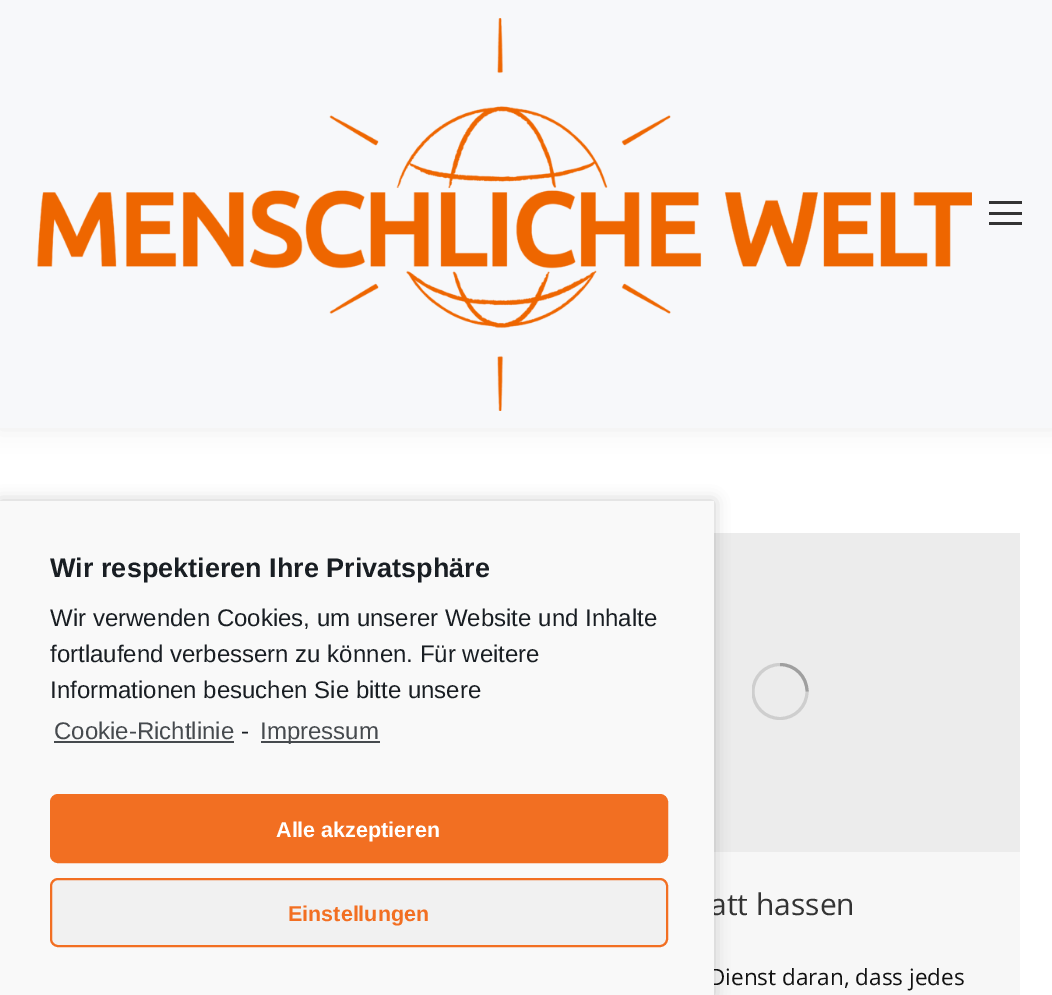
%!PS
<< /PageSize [1052 995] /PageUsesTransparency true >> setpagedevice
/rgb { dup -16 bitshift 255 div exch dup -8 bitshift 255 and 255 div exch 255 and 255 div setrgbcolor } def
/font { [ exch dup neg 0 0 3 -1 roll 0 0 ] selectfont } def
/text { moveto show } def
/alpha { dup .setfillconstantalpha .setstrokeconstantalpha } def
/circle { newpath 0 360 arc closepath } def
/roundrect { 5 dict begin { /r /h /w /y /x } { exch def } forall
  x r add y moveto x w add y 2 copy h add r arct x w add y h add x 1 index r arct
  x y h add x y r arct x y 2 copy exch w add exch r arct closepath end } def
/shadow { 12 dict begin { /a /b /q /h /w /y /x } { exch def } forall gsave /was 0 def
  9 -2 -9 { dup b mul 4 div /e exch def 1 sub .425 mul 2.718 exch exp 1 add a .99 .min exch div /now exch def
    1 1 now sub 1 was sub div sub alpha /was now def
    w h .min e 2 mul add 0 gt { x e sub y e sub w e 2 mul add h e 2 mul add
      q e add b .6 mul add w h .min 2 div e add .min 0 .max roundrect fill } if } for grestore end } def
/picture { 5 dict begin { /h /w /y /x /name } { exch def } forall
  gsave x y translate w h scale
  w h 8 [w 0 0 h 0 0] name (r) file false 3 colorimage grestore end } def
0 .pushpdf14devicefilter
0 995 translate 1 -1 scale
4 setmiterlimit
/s1 { /OpenSans-Regular 30 font 16#333333 rgb } def
/s2 { /OpenSans-Regular 22.5 font 16#111111 rgb } def
/s3 { /LiberationSans-Bold 27 font 16#191E23 rgb } def
/s4 { /LiberationSans-Regular 24 font 16#191E23 rgb } def
/s5 { /LiberationSans-Regular 24 font 16#464A4E rgb } def
/s6 { /LiberationSans-Bold 21.5 font 16#FFFFFF rgb } def
/s7 { /LiberationSans-Bold 21.5 font 16#F26F22 rgb } def
16#FFFFFF rgb
0 0 1052 995 rectfill
16#F7F7F7 rgb
714 852 306 143 rectfill
16#ECECEC rgb
714 533 306 319 rectfill
16#000000 rgb
0 501 714 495 0 7.5 0.2 shadow
s1
(att hassen) 710 915 text
s2
(Dienst daran, dass jedes) 709 985 text
16#F9F9F9 rgb
0 501 714 494 rectfill
s3
(Wir respektieren Ihre Privatsphäre) 50 577 text
s4
(Wir verwenden Cookies, um unserer Website und Inhalte) 50 626 text
(fortlaufend verbessern zu können. Für weitere) 50 662 text
(Informationen besuchen Sie bitte unsere) 50 698 text
s5
(Cookie-Richtlinie) 54 739 text
54 741 180 2 rectfill
s4
(-) 241 739 text
16#464A4E rgb
261 741 119 2 rectfill
(Impressum) 260 739 text
16#F26F22 rgb
51 795 616 67 7 roundrect gsave fill grestore
2 setlinewidth
stroke
s6
(Alle akzeptieren) 276 837 text
16#F1F1F1 rgb
51 879 616 67 7 roundrect gsave fill grestore
16#F26F22 rgb
stroke
(Einstellungen) 288 921 text
16#000000 rgb
-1 -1 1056 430 0 11 0.07 shadow
16#F7F8FA rgb
0 0 1052 428 rectfill
(pic1.raw) 37 18 935 393 picture
16#333333 rgb
989 201 33 3 rectfill
989 212 33 3 rectfill
989 222 33 3 rectfill
gsave
752 663 57 57 rectclip
16#CECECE rgb
3 setlinewidth
780 691.5 27 circle stroke
grestore
0.25 alpha
16#111111 rgb
3 setlinewidth
807 691.5 moveto 807 676.5 795 664.5 780 664.5 curveto stroke
.poppdf14devicefilter showpage
